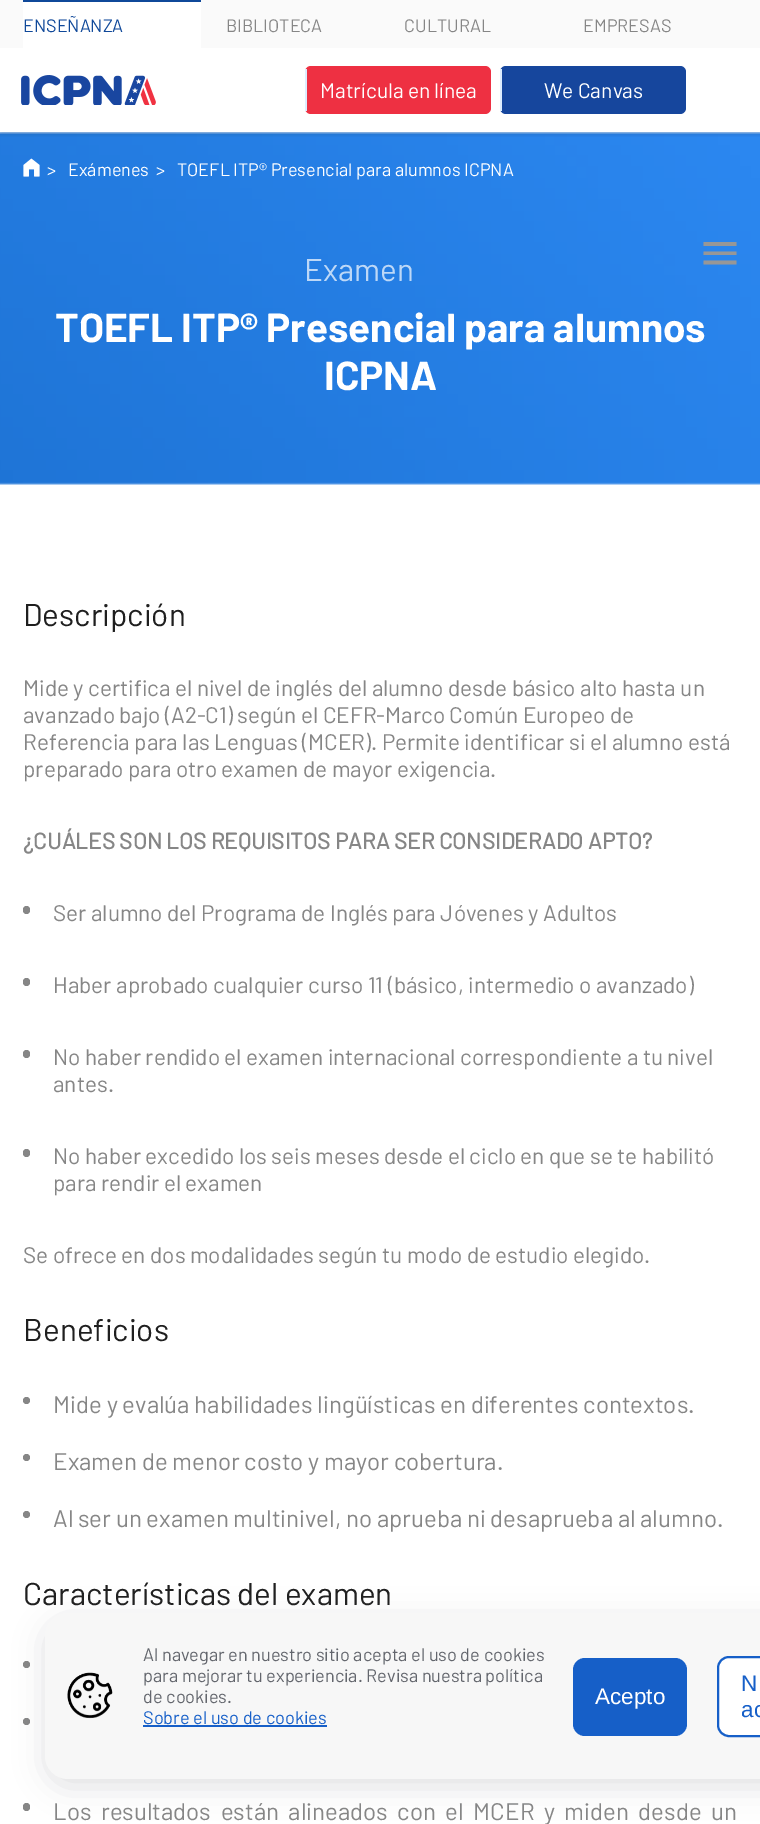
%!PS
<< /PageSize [760 1824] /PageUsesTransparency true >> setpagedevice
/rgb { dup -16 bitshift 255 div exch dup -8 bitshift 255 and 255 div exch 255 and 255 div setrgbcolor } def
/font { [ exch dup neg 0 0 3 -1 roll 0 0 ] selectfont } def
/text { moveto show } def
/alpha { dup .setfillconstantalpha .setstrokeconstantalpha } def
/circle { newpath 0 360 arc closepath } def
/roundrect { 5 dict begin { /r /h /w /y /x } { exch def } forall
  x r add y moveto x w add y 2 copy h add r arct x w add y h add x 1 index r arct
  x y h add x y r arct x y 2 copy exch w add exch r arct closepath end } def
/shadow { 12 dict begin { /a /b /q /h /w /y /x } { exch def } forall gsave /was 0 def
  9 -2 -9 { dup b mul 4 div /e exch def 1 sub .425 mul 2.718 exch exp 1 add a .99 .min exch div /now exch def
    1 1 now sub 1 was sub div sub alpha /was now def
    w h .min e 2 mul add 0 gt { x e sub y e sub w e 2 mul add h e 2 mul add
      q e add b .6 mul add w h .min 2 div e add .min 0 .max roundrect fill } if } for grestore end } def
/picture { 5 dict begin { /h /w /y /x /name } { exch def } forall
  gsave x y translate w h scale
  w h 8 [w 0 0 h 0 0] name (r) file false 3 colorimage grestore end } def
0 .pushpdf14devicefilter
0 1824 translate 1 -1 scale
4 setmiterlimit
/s1 { /Barlow-Regular 18 font 16#0F4899 rgb } def
/s2 { /Barlow-Regular 18 font 16#868686 rgb } def
/s3 { /Barlow-Regular 21 font 16#FFFFFF rgb } def
/s4 { /Barlow-Regular 18 font 16#FFFFFF rgb } def
/s5 { /Barlow-Regular 31.5 font 16#BDD8F7 rgb } def
/s6 { /Barlow-Bold 40.5 font 16#FFFFFF rgb } def
/s7 { /Barlow-Regular 31.5 font 16#1F1F1F rgb } def
/s8 { /Barlow-Regular 22.5 font 16#868686 rgb } def
/s9 { /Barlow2-Bold 22.5 font 16#868686 rgb } def
/s10 { /Barlow-Regular 24 font 16#868686 rgb } def
/s11 { /Barlow-Regular 18.1 font 16#63666D rgb } def
/s12 { /Barlow-Regular 18.1 font 16#165FC8 rgb } def
/s13 { /LiberationSans-Regular 22.5 font 16#FFFFFF rgb } def
/s14 { /LiberationSans-Regular 22.5 font 16#165FC8 rgb } def
16#FFFFFF rgb
0 0 760 1824 rectfill
(pic2.raw) 0 132 760 353 picture
gsave
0 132 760 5 rectclip
16#000000 rgb
0 3 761 132 0 2 0.1 shadow
grestore
16#FAFAFA rgb
0 0 760 48 rectfill
16#FFFFFF rgb
23 2 178 46 rectfill
16#0F4899 rgb
23 0 178 2 rectfill
s1
(ENSEÑANZA) 23 32 text
s2
(BIBLIOTECA) 226 32 text
(CULTURAL) 404 32 text
(EMPRESAS) 583 32 text
(pic1.raw) 21 75 135 30 picture
16#EE3042 rgb
305 66 186 48 6 roundrect fill
16#DDEDFF rgb
305 69 2 42 rectfill
s3
(Matrícula en línea) 320 98 text
16#16469D rgb
500 66 186 48 6 roundrect fill
16#DDEDFF rgb
500 69 2 42 rectfill
s3
(We Canvas) 544 98 text
(pic3.raw) 23 158 17 19 picture
s4
(>) 47 176 text
(Exámenes) 68 176 text
(>) 156 176 text
(TOEFL ITP® Presencial para alumnos ICPNA) 177 176 text
s5
(Examen) 304 281 text
s6
(TOEFL ITP® Presencial para alumnos) 55 342 text
(ICPNA) 324 390 text
s7
(Descripción) 23 626 text
s8
(Mide y certifica el nivel de inglés del alumno desde básico alto hasta un) 23 696 text
(avanzado bajo \(A2-C1\) según el CEFR-Marco Común Europeo de) 23 723 text
(Referencia para las Lenguas \(MCER\). Permite identificar si el alumno está) 23 750 text
(preparado para otro examen de mayor exigencia.) 23 777 text
s9
(¿CUÁLES SON LOS REQUISITOS PARA SER CONSIDERADO APTO?) 23 849 text
23 906 7 8 3.5 roundrect fill
s8
(Ser alumno del Programa de Inglés para Jóvenes y Adultos) 53 921 text
23 978 7 8 3.5 roundrect fill
(Haber aprobado cualquier curso 11 \(básico, intermedio o avanzado\)) 53 993 text
23 1050 7 8 3.5 roundrect fill
(No haber rendido el examen internacional correspondiente a tu nivel) 53 1065 text
(antes.) 53 1092 text
23 1149 7 8 3.5 roundrect fill
(No haber excedido los seis meses desde el ciclo en que se te habilitó) 53 1164 text
(para rendir el examen) 53 1191 text
(Se ofrece en dos modalidades según tu modo de estudio elegido.) 23 1263 text
s7
(Beneficios) 23 1341 text
16#868686 rgb
26.5 1400.5 3.5 circle fill
s10
(Mide y evalúa habilidades lingüísticas en diferentes contextos.) 53 1413 text
26.5 1457.5 3.5 circle fill
(Examen de menor costo y mayor cobertura.) 53 1470 text
26.5 1514.5 3.5 circle fill
(Al ser un examen multinivel, no aprueba ni desaprueba al alumno.) 53 1527 text
s7
(Características del examen) 23 1605 text
16#868686 rgb
26.5 1664.5 3.5 circle fill
26.5 1721.5 3.5 circle fill
23 1803 7 8 3.5 roundrect fill
/Barlow-Regular 24 font
53 1820 moveto 4.75 0 32 (Los resultados están alineados con el MCER y miden desde un) widthshow
16#979797 rgb
703.5 264.5 moveto 736.5 264.5 lineto 736.5 260.5 lineto 703.5 260.5 lineto closepath 703.5 255 moveto 736.5 255 lineto 736.5 251.5 lineto 703.5 251.5 lineto closepath 703.5 242 moveto 703.5 246 lineto 736.5 246 lineto 736.5 242 lineto closepath fill
16#63666D rgb
45 1620 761 167 23 15 0.2 shadow
16#F7F7F7 rgb
45 1613 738 166 23 roundrect fill
(pic4.raw) 67 1672 46 47 picture
s11
(Al navegar en nuestro sitio acepta el uso de cookies) 143 1661 text
(para mejorar tu experiencia. Revisa nuestra política) 143 1682 text
(de cookies.) 143 1703 text
s12
(Sobre el uso de cookies) 143 1724 text
143 1725 184 2 rectfill
573 1658 114 78 12 roundrect fill
s13
(Acepto) 595 1704 text
718 1657 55 79 11 roundrect gsave fill grestore
16#165FC8 rgb
2 setlinewidth
stroke
(N) 741 1691 text
(ac) 741 1717 text
.poppdf14devicefilter showpage
